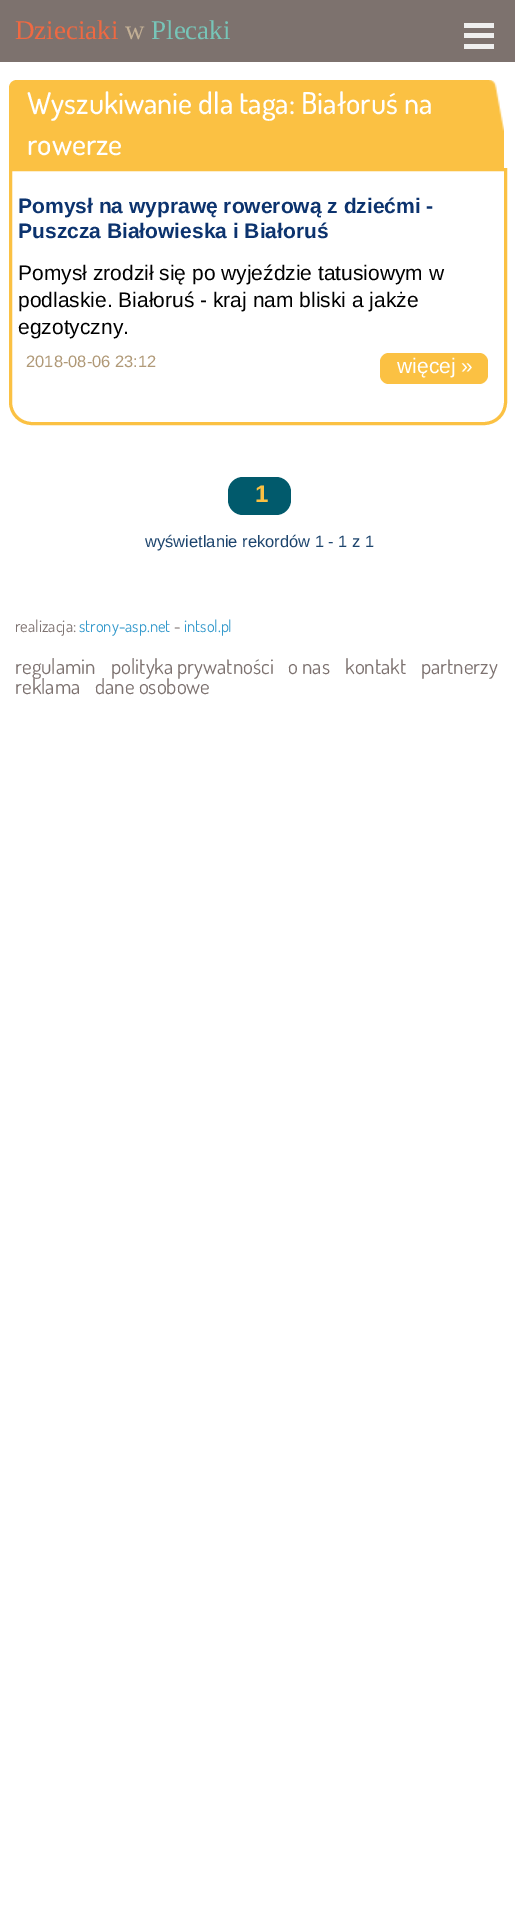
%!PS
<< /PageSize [515 1924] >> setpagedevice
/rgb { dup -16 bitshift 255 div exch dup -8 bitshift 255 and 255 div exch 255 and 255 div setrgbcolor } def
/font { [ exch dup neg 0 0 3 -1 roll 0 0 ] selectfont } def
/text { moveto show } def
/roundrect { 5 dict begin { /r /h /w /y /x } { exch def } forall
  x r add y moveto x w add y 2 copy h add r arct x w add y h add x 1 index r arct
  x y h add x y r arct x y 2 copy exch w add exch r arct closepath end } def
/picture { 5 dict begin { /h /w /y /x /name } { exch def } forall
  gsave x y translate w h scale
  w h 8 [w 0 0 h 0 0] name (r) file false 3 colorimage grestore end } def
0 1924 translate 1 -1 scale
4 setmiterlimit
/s1 { /LiberationSerif-Regular 27 font 16#EF6942 rgb } def
/s2 { /LiberationSerif-Regular 27 font 16#C2AF95 rgb } def
/s3 { /LiberationSerif-Regular 27 font 16#77C5B8 rgb } def
/s4 { /Dosis-Medium 30 font 16#FFFFFF rgb } def
/s5 { /LiberationSans-Bold 21 font 16#0C336E rgb } def
/s6 { /LiberationSans-Regular 21 font 16#000000 rgb } def
/s7 { /LiberationSans-Regular 16.5 font 16#B09977 rgb } def
/s8 { /LiberationSans-Regular 21 font 16#FFFFFF rgb } def
/s9 { /LiberationSans-Bold 24 font 16#FAC042 rgb } def
/s10 { /LiberationSans-Regular 16.5 font 16#1C446D rgb } def
/s11 { /Dosis-Regular 16.5 font 16#7D7270 rgb } def
/s12 { /Dosis-Regular 16.5 font 16#3399CC rgb } def
/s13 { /Dosis-Regular 21 font 16#7D7270 rgb } def
16#FFFFFF rgb
0 0 515 1924 rectfill
16#7D726E rgb
0 0 515 62 rectfill
s1
(Dzieciaki) 15 39 text
s2
(w) 125 39 text
s3
(Plecaki) 151 39 text
16#EFEFEF rgb
464 23 30 5 rectfill
464 33 30 5 rectfill
464 44 30 5 rectfill
16#FBC143 rgb
17 80 moveto 504 80 lineto 504 168 lineto 9 168 lineto 9 88 lineto 9 83.5 12.5 80 17 80 curveto closepath fill
(pic1.raw) 489 80 15 51 picture
s4
(Wyszukiwanie dla taga: Białoruś na) 27 114 text
(rowerze) 27 155 text
16#FBC143 rgb
3 setlinewidth
10.5 169.5 moveto 505.5 169.5 lineto 505.5 402 lineto 505.5 414 496 423.5 484 423.5 curveto 32 423.5 lineto 20 423.5 10.5 414 10.5 402 curveto closepath stroke
s5
(Pomysł na wyprawę rowerową z dziećmi -) 18 213 text
(Puszcza Białowieska i Białoruś) 18 238 text
s6
(Pomysł zrodził się po wyjeździe tatusiowym w) 18 280 text
(podlaskie. Białoruś - kraj nam bliski a jakże) 18 307 text
(egzotyczny.) 18 334 text
s7
(2018-08-06 23:12) 26 367 text
16#FBC143 rgb
380 353 108 31 9 roundrect fill
s8
(więcej ») 397 373 text
16#015A6C rgb
228 477 63 38 15 roundrect fill
s9
(1) 255 502 text
s10
(wyświetlanie rekordów 1 - 1 z 1) 145 547 text
s11
(realizacja:) 15 632 text
s12
(strony-asp.net) 79 632 text
s11
(-) 174 632 text
s12
(intsol.pl) 184 632 text
s13
(regulamin) 15 674 text
(polityka prywatności) 111 674 text
(o nas) 288 674 text
(kontakt) 345 674 text
(partnerzy) 421 674 text
(reklama) 15 694 text
(dane osobowe) 95 694 text
showpage
